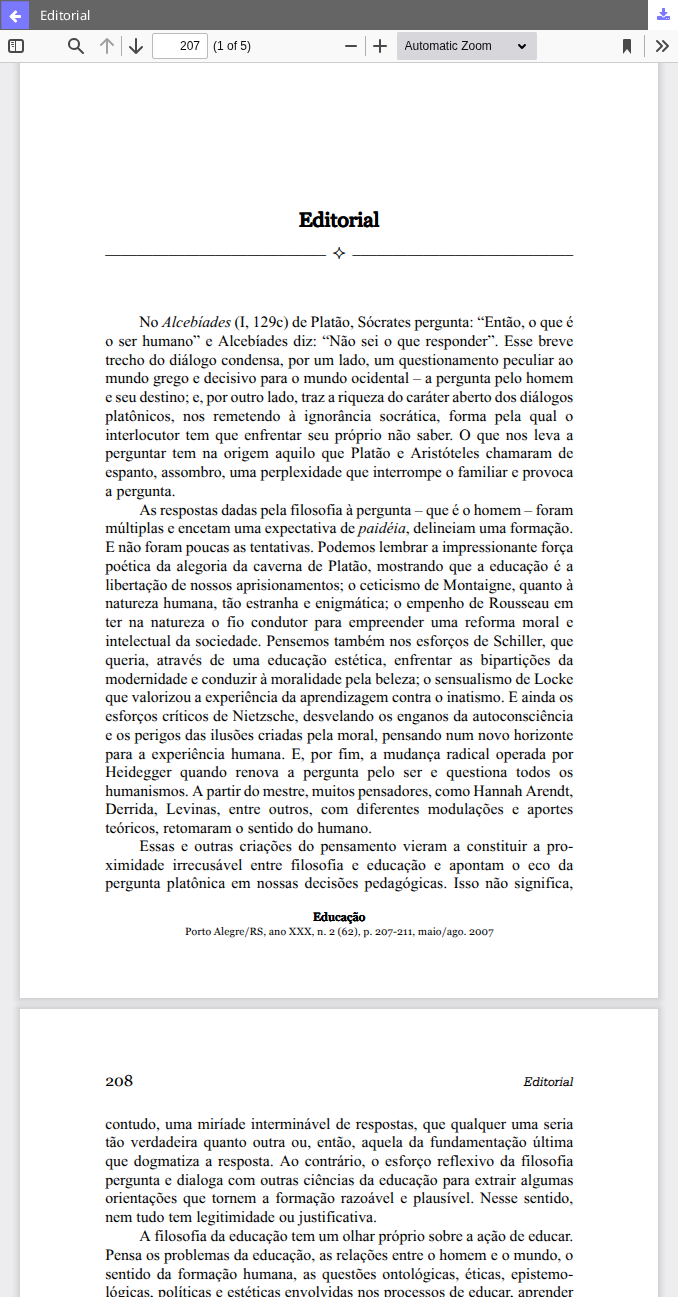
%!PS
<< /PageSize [678 1297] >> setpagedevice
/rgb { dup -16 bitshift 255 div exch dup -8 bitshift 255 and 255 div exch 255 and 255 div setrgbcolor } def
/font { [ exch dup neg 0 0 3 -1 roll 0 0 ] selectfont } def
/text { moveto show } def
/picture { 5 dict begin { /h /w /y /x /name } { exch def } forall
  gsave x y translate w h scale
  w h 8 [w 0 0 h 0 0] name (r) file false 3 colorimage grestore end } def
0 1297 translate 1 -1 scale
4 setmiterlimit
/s1 { /NotoSans-Regular 13 font 16#FFFFFF rgb } def
16#FFFFFF rgb
0 0 678 1297 rectfill
16#656565 rgb
30 0 618 30 rectfill
16#7A78FF rgb
0.5 0.5 moveto 29.5 0.5 lineto 29.5 29.5 lineto 0.5 29.5 lineto closepath gsave fill grestore
16#656565 rgb
stroke
(pic1.raw) 9 10 12 13 picture
s1
(Editorial) 40 20 text
(pic2.raw) 657 8 13 12 picture
(pic3.raw) 0 30 678 1267 picture
showpage
